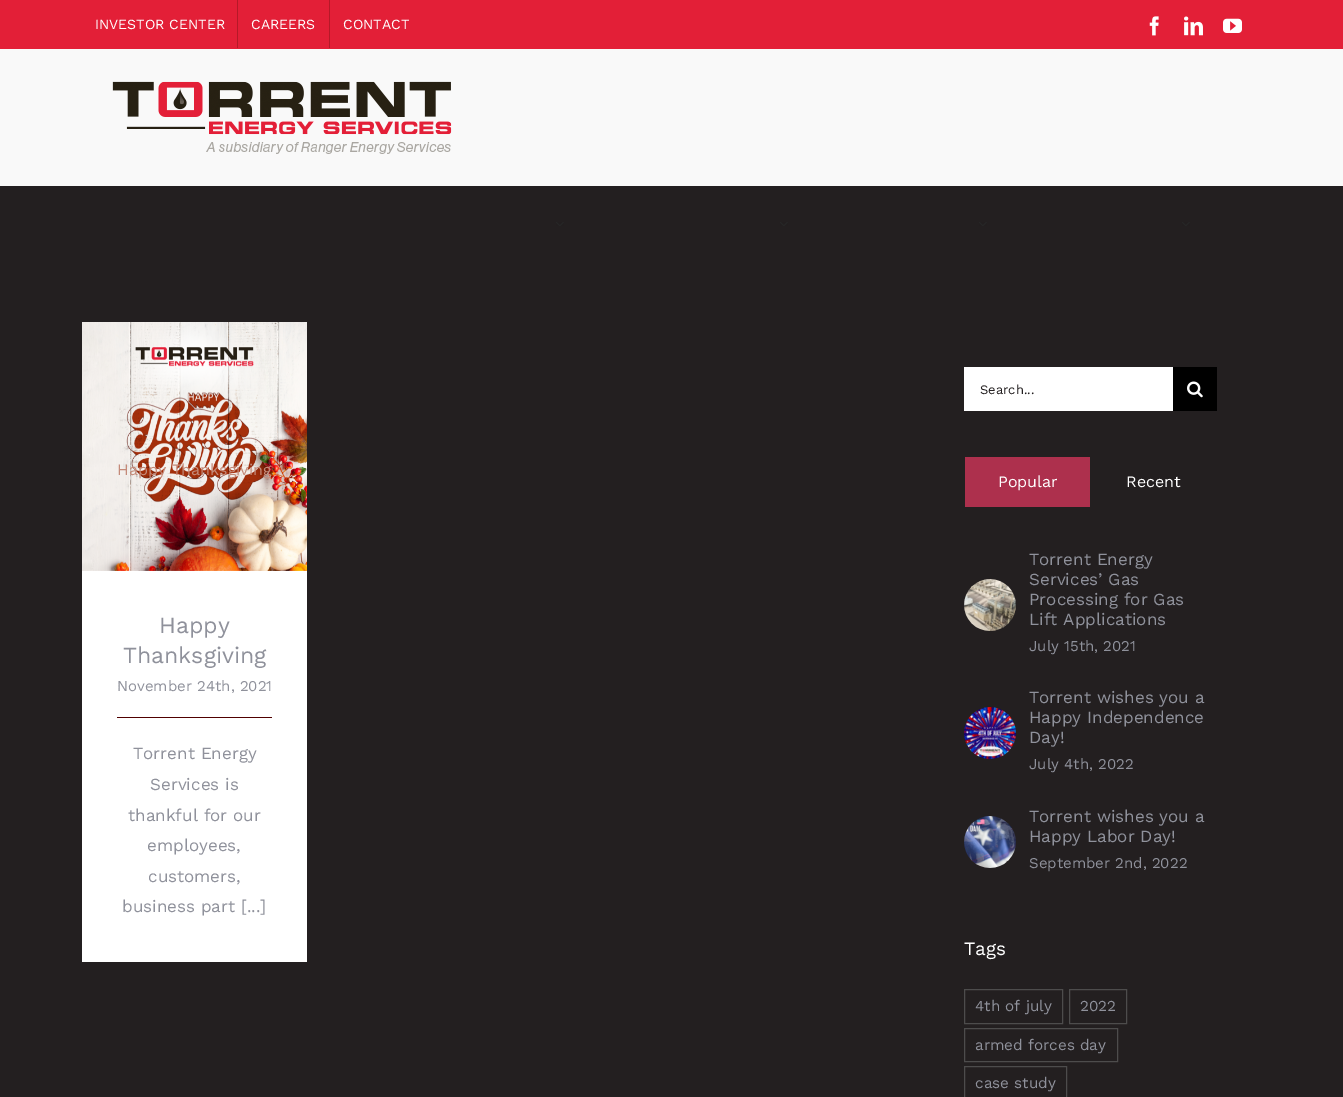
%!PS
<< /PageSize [1343 1097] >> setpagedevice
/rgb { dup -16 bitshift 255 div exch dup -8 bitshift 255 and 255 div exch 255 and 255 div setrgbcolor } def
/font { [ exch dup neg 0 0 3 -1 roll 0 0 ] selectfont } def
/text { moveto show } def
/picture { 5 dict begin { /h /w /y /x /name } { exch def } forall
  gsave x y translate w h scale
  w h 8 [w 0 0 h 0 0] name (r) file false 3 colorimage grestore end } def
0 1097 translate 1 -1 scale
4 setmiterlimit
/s1 { /WorkSans-Regular 14 font 16#FFFFFF rgb } def
/s2 { /WorkSans-Regular 16 font 16#C48A79 rgb } def
/s3 { /WorkSans-Regular 23 font 16#8F919B rgb } def
/s4 { /WorkSans-Regular 15 font 16#8F919B rgb } def
/s5 { /WorkSans-Regular 17 font 16#8F919B rgb } def
/s6 { /WorkSans-Regular 13 font 16#231F20 rgb } def
/s7 { /WorkSans-Regular 16 font 16#FFFFFF rgb } def
/s8 { /WorkSans-Regular 19 font 16#FFFFFF rgb } def
/s9 { /WorkSans-Regular 15.25 font 16#8F919B rgb } def
16#231F20 rgb
0 0 1343 1097 rectfill
16#E31F37 rgb
0 0 1343 49 rectfill
s1
(INVESTOR CENTER) 95 29 text
16#B51928 rgb
237 0 1 48 rectfill
s1
(CAREERS) 251 29 text
16#B51928 rgb
329 0 1 48 rectfill
s1
(CONTACT) 343 29 text
(pic1.raw) 1149 16 10 20 picture
(pic2.raw) 1184 16 19 20 picture
(pic3.raw) 1223 18 19 15 picture
16#F9F9F9 rgb
0 49 1343 137 rectfill
(pic4.raw) 112 81 340 73 picture
(pic5.raw) 556 222 8 4 picture
(pic5.raw) 780 222 8 4 picture
(pic5.raw) 979 222 8 4 picture
(pic5.raw) 1182 222 8 4 picture
16#FFFFFF rgb
82 570 225 392 rectfill
(pic6.raw) 82 322 225 249 picture
s2
(Happy Thanksgiving) 117 475 text
s3
(Happy) 159 633 text
(Thanksgiving) 123 663 text
s4
(November 24th, 2021) 117 691 text
16#500000 rgb
117 717 155 1 rectfill
s5
(Torrent Energy) 133 759 text
(Services is) 150 790 text
(thankful for our) 128 821 text
(employees,) 147 851 text
(customers,) 148 882 text
(business part [...]) 122 912 text
16#FFFFFF rgb
964 367 209 44 rectfill
s6
(Search...) 980 394 text
16#000000 rgb
1173 367 44 44 rectfill
(pic7.raw) 1187 381 16 17 picture
16#AD304D rgb
965 457 125 50 rectfill
s7
(Popular) 998 487 text
(Recent) 1126 487 text
(pic8.raw) 964 579 52 52 picture
s5
(Torrent Energy) 1029 565 text
(Services’ Gas) 1029 585 text
(Processing for Gas) 1029 605 text
(Lift Applications) 1029 625 text
s4
(July 15th, 2021) 1029 651 text
(pic9.raw) 964 707 52 52 picture
s5
(Torrent wishes you a) 1029 703 text
(Happy Independence) 1029 723 text
(Day!) 1029 743 text
s4
(July 4th, 2022) 1029 769 text
(pic10.raw) 964 816 52 52 picture
s5
(Torrent wishes you a) 1029 822 text
(Happy Labor Day!) 1029 842 text
s4
(September 2nd, 2022) 1029 868 text
s8
(Tags) 964 955 text
16#4D4C4C rgb
964.5 989.5 98 34 rectstroke
s9
(4th of july) 975 1011 text
16#4D4C4C rgb
1069.5 989.5 57 34 rectstroke
s9
(2022) 1080 1011 text
16#4D4C4C rgb
964.5 1028.5 153 33 rectstroke
s9
(armed forces day) 975 1050 text
16#4D4C4C rgb
964.5 1066.5 102 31 rectstroke
s9
(case study) 975 1088 text
showpage
